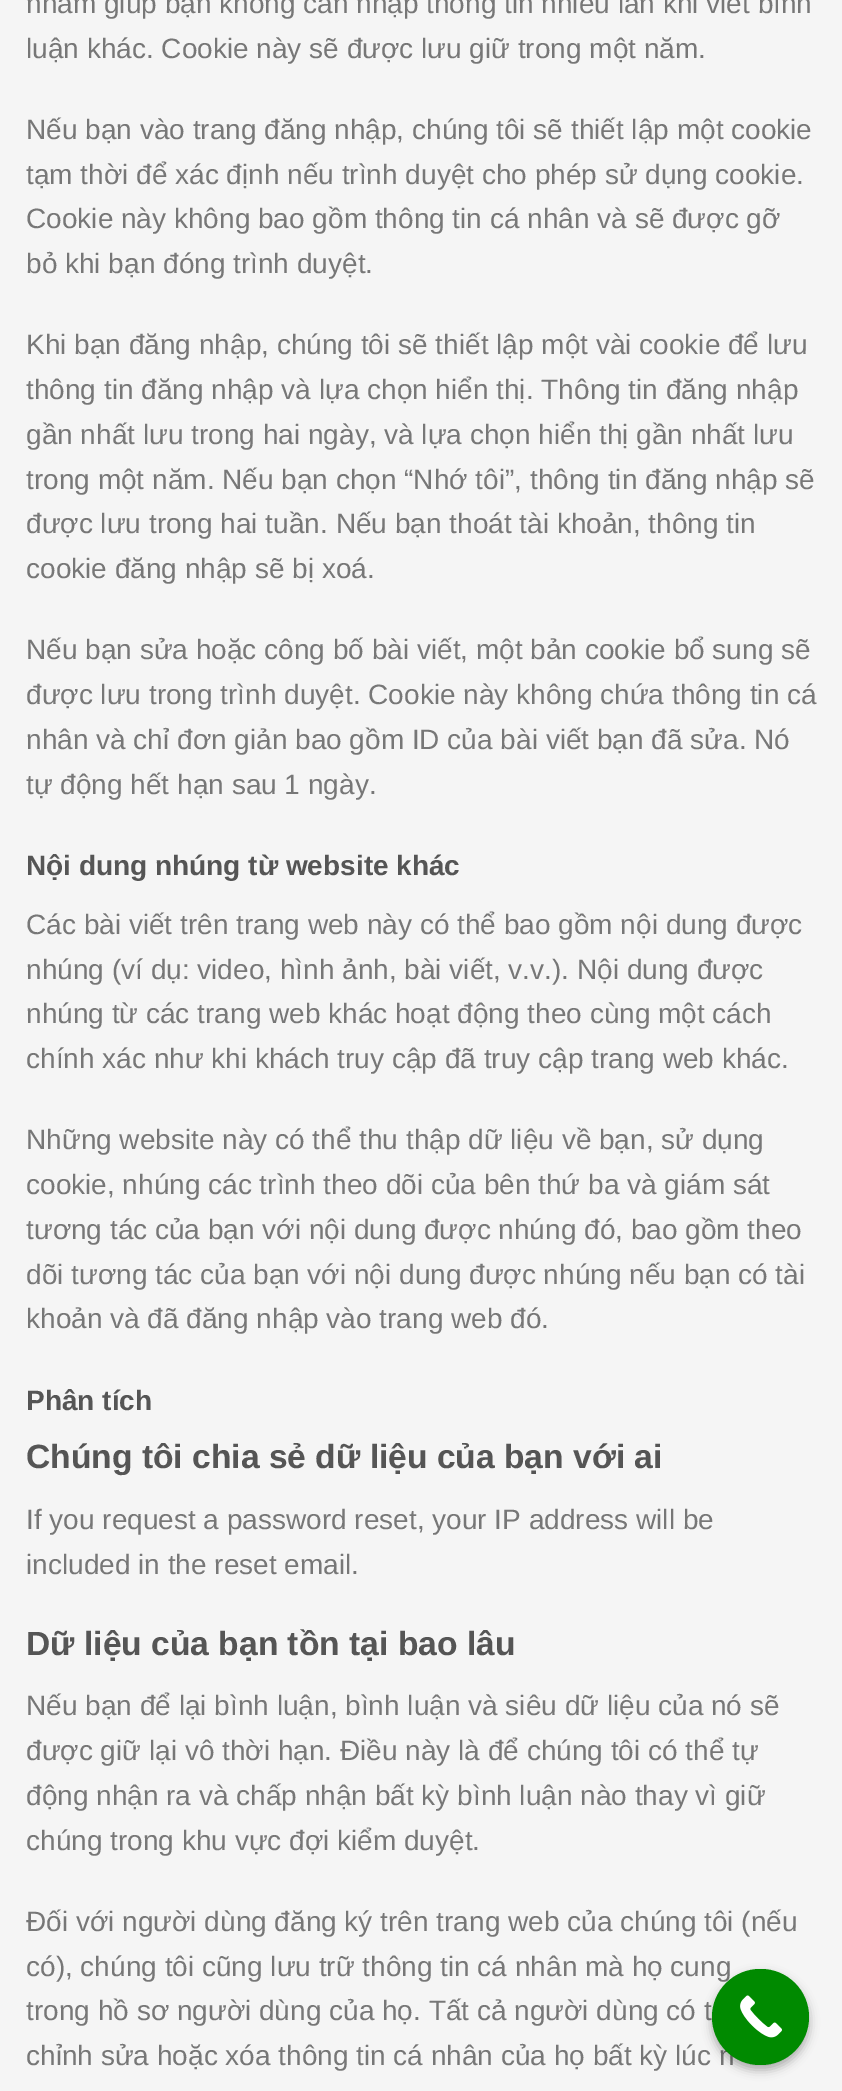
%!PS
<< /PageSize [842 2091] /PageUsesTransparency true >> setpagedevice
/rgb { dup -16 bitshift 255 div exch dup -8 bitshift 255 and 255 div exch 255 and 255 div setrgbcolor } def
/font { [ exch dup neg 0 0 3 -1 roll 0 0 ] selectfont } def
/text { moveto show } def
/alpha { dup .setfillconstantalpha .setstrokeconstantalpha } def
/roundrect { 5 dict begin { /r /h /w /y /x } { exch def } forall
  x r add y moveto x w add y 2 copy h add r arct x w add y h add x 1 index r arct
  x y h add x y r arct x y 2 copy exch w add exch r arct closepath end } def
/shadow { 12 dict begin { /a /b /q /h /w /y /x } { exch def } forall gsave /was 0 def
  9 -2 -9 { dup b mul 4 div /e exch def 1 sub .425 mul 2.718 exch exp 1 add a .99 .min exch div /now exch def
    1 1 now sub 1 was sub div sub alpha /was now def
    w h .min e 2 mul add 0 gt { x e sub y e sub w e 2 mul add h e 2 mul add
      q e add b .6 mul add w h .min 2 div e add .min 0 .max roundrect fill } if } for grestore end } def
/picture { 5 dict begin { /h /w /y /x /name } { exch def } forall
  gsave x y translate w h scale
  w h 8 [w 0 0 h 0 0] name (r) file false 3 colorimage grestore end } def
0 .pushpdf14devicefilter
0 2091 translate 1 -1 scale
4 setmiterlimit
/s1 { /LiberationSans-Regular 28 font 16#777777 rgb } def
/s2 { /LiberationSans-Bold 28 font 16#555555 rgb } def
/s3 { /LiberationSans-Bold 33.6 font 16#555555 rgb } def
16#F5F5F5 rgb
0 0 842 2091 rectfill
s1
(nhằm giúp bạn không cần nhập thông tin nhiều lần khi viết bình) 26 13 text
(luận khác. Cookie này sẽ được lưu giữ trong một năm.) 26 58 text
(Nếu bạn vào trang đăng nhập, chúng tôi sẽ thiết lập một cookie) 26 139 text
(tạm thời để xác định nếu trình duyệt cho phép sử dụng cookie.) 26 184 text
(Cookie này không bao gồm thông tin cá nhân và sẽ được gỡ) 26 228 text
(bỏ khi bạn đóng trình duyệt.) 26 273 text
(Khi bạn đăng nhập, chúng tôi sẽ thiết lập một vài cookie để lưu) 26 354 text
(thông tin đăng nhập và lựa chọn hiển thị. Thông tin đăng nhập) 26 399 text
(gần nhất lưu trong hai ngày, và lựa chọn hiển thị gần nhất lưu) 26 444 text
(trong một năm. Nếu bạn chọn “Nhớ tôi”, thông tin đăng nhập sẽ) 26 489 text
(được lưu trong hai tuần. Nếu bạn thoát tài khoản, thông tin) 26 533 text
(cookie đăng nhập sẽ bị xoá.) 26 578 text
(Nếu bạn sửa hoặc công bố bài viết, một bản cookie bổ sung sẽ) 26 659 text
(được lưu trong trình duyệt. Cookie này không chứa thông tin cá) 26 704 text
(nhân và chỉ đơn giản bao gồm ID của bài viết bạn đã sửa. Nó) 26 749 text
(tự động hết hạn sau 1 ngày.) 26 794 text
s2
(Nội dung nhúng từ website khác) 26 875 text
s1
(Các bài viết trên trang web này có thể bao gồm nội dung được) 26 934 text
(nhúng \(ví dụ: video, hình ảnh, bài viết, v.v.\). Nội dung được) 26 979 text
(nhúng từ các trang web khác hoạt động theo cùng một cách) 26 1023 text
(chính xác như khi khách truy cập đã truy cập trang web khác.) 26 1068 text
(Những website này có thể thu thập dữ liệu về bạn, sử dụng) 26 1149 text
(cookie, nhúng các trình theo dõi của bên thứ ba và giám sát) 26 1194 text
(tương tác của bạn với nội dung được nhúng đó, bao gồm theo) 26 1239 text
(dõi tương tác của bạn với nội dung được nhúng nếu bạn có tài) 26 1284 text
(khoản và đã đăng nhập vào trang web đó.) 26 1328 text
s2
(Phân tích) 26 1410 text
s3
(Chúng tôi chia sẻ dữ liệu của bạn với ai) 26 1468 text
s1
(If you request a password reset, your IP address will be) 26 1529 text
(included in the reset email.) 26 1574 text
s3
(Dữ liệu của bạn tồn tại bao lâu) 26 1655 text
s1
(Nếu bạn để lại bình luận, bình luận và siêu dữ liệu của nó sẽ) 26 1715 text
(được giữ lại vô thời hạn. Điều này là để chúng tôi có thể tự) 26 1760 text
(động nhận ra và chấp nhận bất kỳ bình luận nào thay vì giữ) 26 1805 text
(chúng trong khu vực đợi kiểm duyệt.) 26 1850 text
(Đối với người dùng đăng ký trên trang web của chúng tôi \(nếu) 26 1931 text
(có\), chúng tôi cũng lưu trữ thông tin cá nhân mà họ cung) 26 1976 text
(trong hồ sơ người dùng của họ. Tất cả người dùng có t) 26 2020 text
(chỉnh sửa hoặc xóa thông tin cá nhân của họ bất kỳ lúc n) 26 2065 text
16#000000 rgb
712 1974 97 96 48 5 0.3 shadow
16#008A00 rgb
712 1969 97 96 48 roundrect fill
(pic1.raw) 740 1995 42 43 picture
.poppdf14devicefilter showpage
